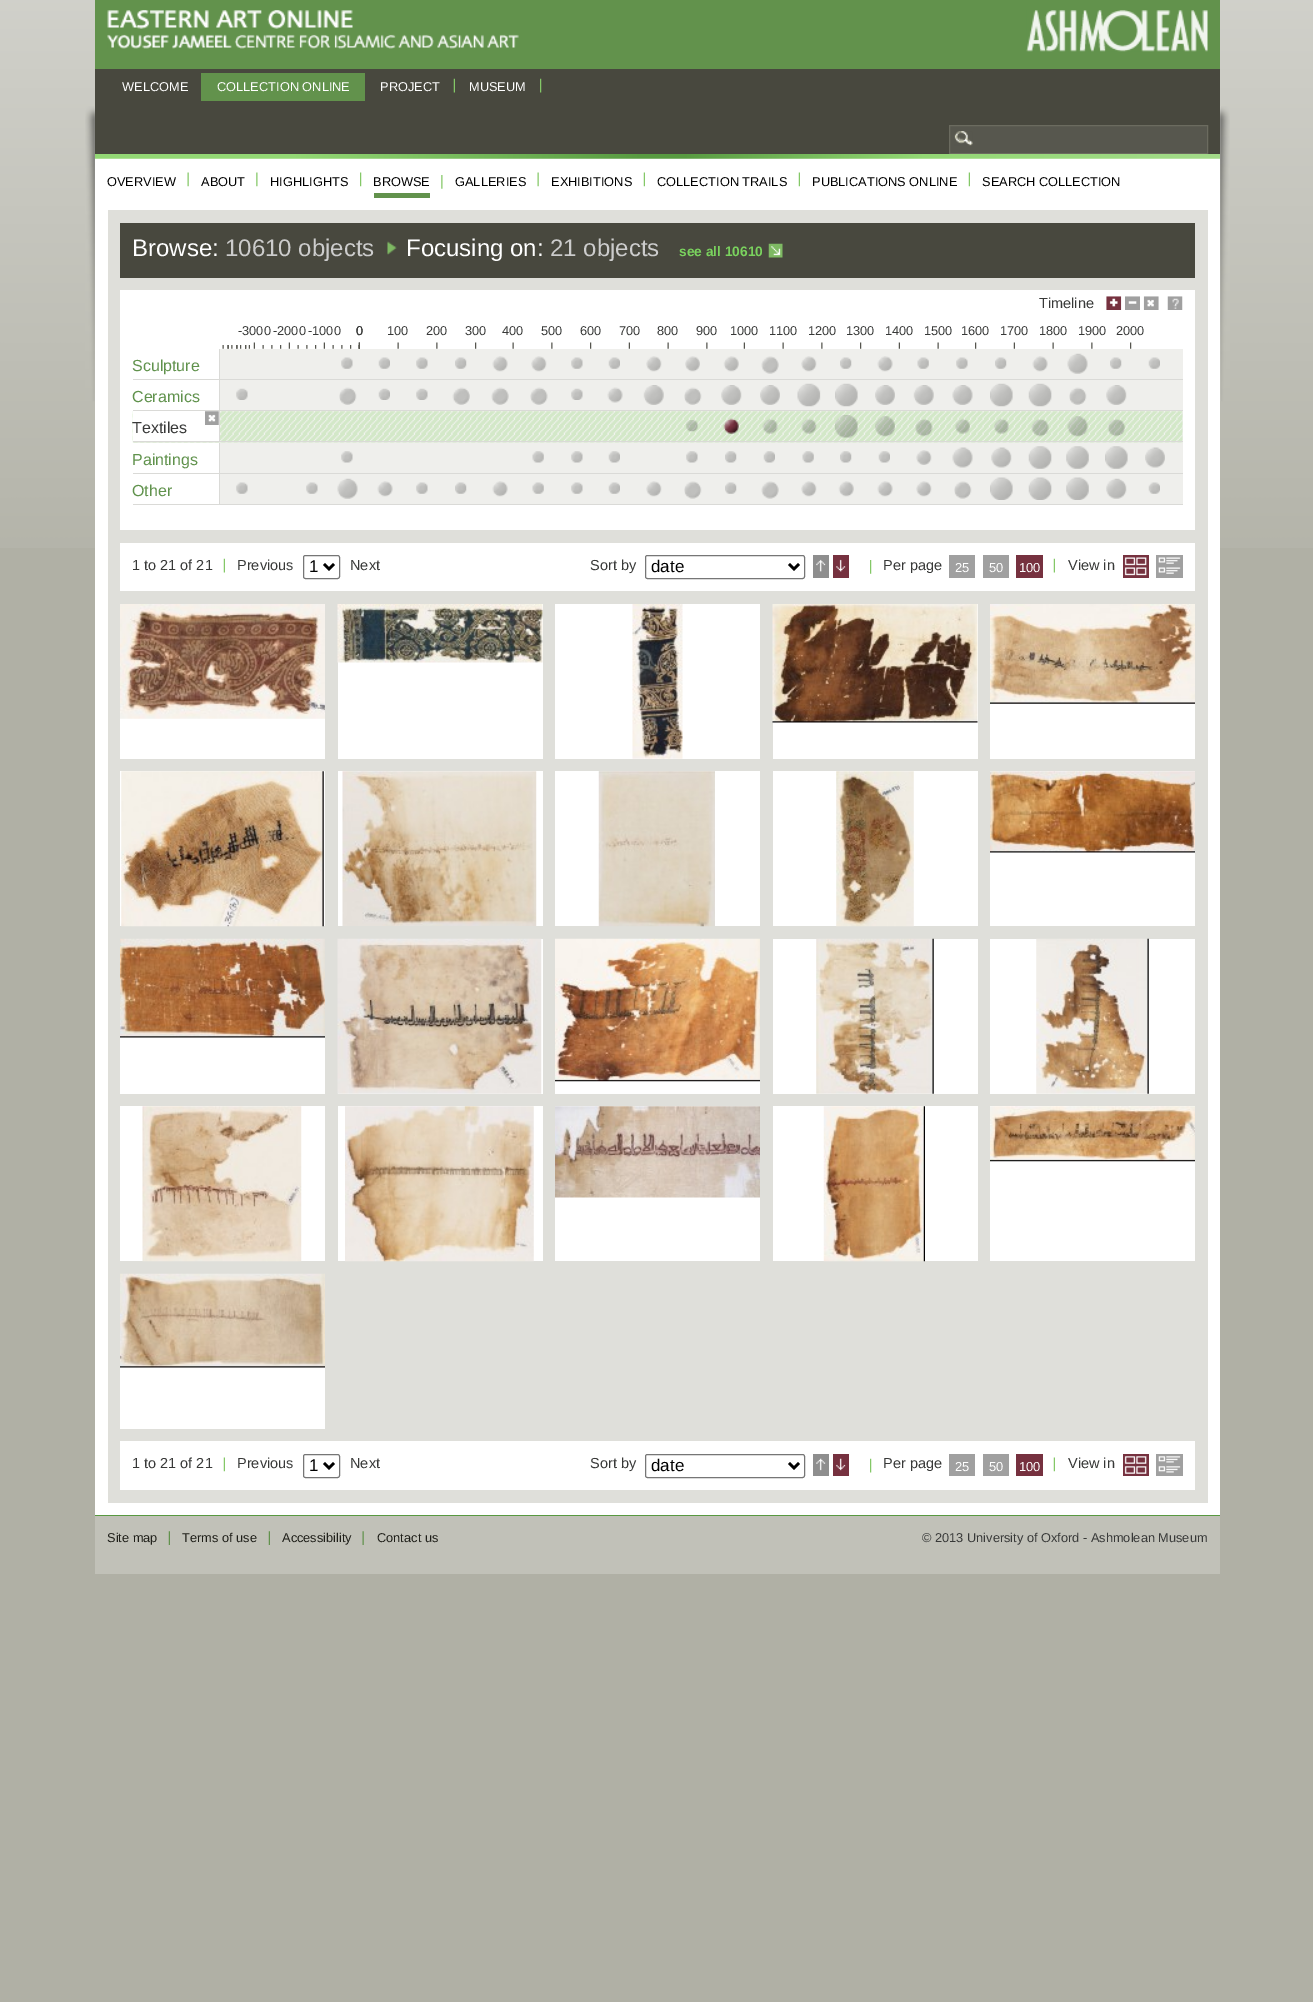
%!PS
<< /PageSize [1313 2002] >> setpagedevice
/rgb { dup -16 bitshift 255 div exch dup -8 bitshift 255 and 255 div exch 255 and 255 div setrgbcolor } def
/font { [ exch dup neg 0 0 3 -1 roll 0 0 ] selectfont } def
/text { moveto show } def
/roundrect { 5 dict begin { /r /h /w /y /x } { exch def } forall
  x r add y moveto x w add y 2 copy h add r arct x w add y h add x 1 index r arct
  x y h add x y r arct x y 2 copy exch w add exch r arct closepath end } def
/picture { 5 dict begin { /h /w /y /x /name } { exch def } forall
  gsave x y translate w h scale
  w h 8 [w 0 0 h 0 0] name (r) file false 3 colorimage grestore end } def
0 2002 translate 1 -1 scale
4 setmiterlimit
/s1 { /LiberationSans-Regular 12.8 font 16#FFFFFF rgb } def
/s2 { /LiberationSans-Regular 12.8 font 16#000000 rgb } def
/s3 { /LiberationSans-Regular 24 font 16#FFFFFF rgb } def
/s4 { /LiberationSans-Regular 24 font 16#CCCCCC rgb } def
/s5 { /LiberationSans-Bold 13.75 font 16#7AD25E rgb } def
/s6 { /LiberationSans-Regular 14.5 font 16#383938 rgb } def
/s7 { /LiberationSans-Regular 12.8 font 16#383938 rgb } def
/s8 { /LiberationSans-Regular 16 font 16#60924C rgb } def
/s9 { /LiberationSans-Regular 16 font 16#383938 rgb } def
/s10 { /LiberationSans-Regular 17 font 16#000000 rgb } def
/s11 { /LiberationSans-Regular 13 font 16#FFFFFF rgb } def
/s12 { /LiberationSans-Regular 12.8 font 16#1F1F19 rgb } def
16#B0B0A5 rgb
0 0 1313 2002 rectfill
(pic1.raw) 0 0 1313 548 picture
(pic2.raw) 85 106 1145 296 picture
16#62924C rgb
95 0 1125 69 rectfill
(pic3.raw) 107 10 412 39 picture
(pic4.raw) 1026 10 182 42 picture
16#48483E rgb
95 69 1125 85 rectfill
s1
(WELCOME) 122 91 text
16#62924C rgb
201 73 164 28 rectfill
s1
(COLLECTION ONLINE) 217 91 text
(pic5.raw) 453 78 2 15 picture
(PROJECT) 380 91 text
(pic6.raw) 540 78 2 15 picture
(MUSEUM) 469 91 text
16#57574E rgb
950 126 257 27 rectfill
(pic7.raw) 954 131 19 15 picture
16#6B6B5F rgb
949.5 125.5 258 28 rectstroke
16#FFFFFF rgb
95 158 1125 1357 rectfill
(pic8.raw) 95 154 1125 5 picture
(pic9.raw) 187 172 2 15 picture
s2
(OVERVIEW) 107 186 text
(pic10.raw) 256 172 2 15 picture
(ABOUT) 201 186 text
(pic11.raw) 360 172 2 15 picture
(HIGHLIGHTS) 270 186 text
(pic12.raw) 441 175 2 14 picture
16#62924C rgb
374 193 56 5 rectfill
s2
(BROWSE) 373 186 text
(pic9.raw) 537 172 2 15 picture
(GALLERIES) 455 186 text
(pic13.raw) 643 172 2 15 picture
(EXHIBITIONS) 551 186 text
(pic13.raw) 798 172 2 15 picture
(COLLECTION TRAILS) 657 186 text
(pic13.raw) 968 172 2 15 picture
(PUBLICATIONS ONLINE) 812 186 text
(SEARCH COLLECTION) 982 186 text
16#DFDFDA rgb
108 210 1100 1293 rectfill
16#48483E rgb
120 223 1075 55 rectfill
s3
(Browse:) 132 256 text
s4
(10610 objects) 225 256 text
(pic14.raw) 387 241 10 14 picture
s3
(Focusing on:) 406 256 text
s4
(21 objects) 550 256 text
s5
(see all 10610) 679 256 text
(pic15.raw) 768 243 15 15 picture
16#FFFFFF rgb
120 290 1075 240 rectfill
s6
(Timeline) 1039 308 text
(pic16.raw) 1106 296 16 14 picture
(pic17.raw) 1125 296 15 14 picture
(pic18.raw) 1143 296 16 14 picture
(pic19.raw) 1167 296 16 14 picture
(pic20.raw) 253 342 2 7 picture
s7
(-3000) 238 335 text
(pic20.raw) 288 342 2 7 picture
(-2000) 273 335 text
(pic20.raw) 323 342 2 7 picture
(-1000) 308 335 text
(pic20.raw) 358 342 2 7 picture
(0) 356 335 text
(pic21.raw) 358 342 2 7 picture
(0) 356 335 text
(pic22.raw) 397 342 2 7 picture
(100) 387 335 text
(pic23.raw) 436 342 2 7 picture
(200) 426 335 text
(pic24.raw) 475 342 2 7 picture
(300) 465 335 text
(pic22.raw) 512 342 2 7 picture
(400) 502 335 text
(pic23.raw) 551 342 2 7 picture
(500) 541 335 text
(pic24.raw) 590 342 2 7 picture
(600) 580 335 text
(pic20.raw) 628 342 2 7 picture
(700) 619 335 text
(pic22.raw) 667 342 2 7 picture
(800) 657 335 text
(pic23.raw) 706 342 2 7 picture
(900) 696 335 text
(pic20.raw) 743 342 2 7 picture
(1000) 730 335 text
(pic22.raw) 782 342 2 7 picture
(1100) 769 335 text
(pic23.raw) 821 342 2 7 picture
(1200) 808 335 text
(pic24.raw) 860 342 2 7 picture
(1300) 846 335 text
(pic20.raw) 898 342 2 7 picture
(1400) 885 335 text
(pic22.raw) 937 342 2 7 picture
(1500) 924 335 text
(pic24.raw) 975 342 2 7 picture
(1600) 961 335 text
(pic20.raw) 1013 342 2 7 picture
(1700) 1000 335 text
(pic22.raw) 1052 342 2 7 picture
(1800) 1039 335 text
(pic23.raw) 1091 342 2 7 picture
(1900) 1078 335 text
(pic24.raw) 1130 342 2 7 picture
(2000) 1116 335 text
(pic25.raw) 222 345 2 4 picture
(pic25.raw) 227 345 2 4 picture
(pic26.raw) 227 345 2 4 picture
(pic27.raw) 231 345 2 4 picture
(pic27.raw) 236 345 2 4 picture
(pic28.raw) 236 345 2 4 picture
(pic29.raw) 240 345 2 4 picture
(pic29.raw) 245 345 2 4 picture
(pic30.raw) 245 345 2 4 picture
(pic31.raw) 248 345 2 4 picture
(pic25.raw) 262 345 2 4 picture
(pic27.raw) 271 345 2 4 picture
(pic29.raw) 280 345 2 4 picture
(pic25.raw) 297 345 2 4 picture
(pic27.raw) 306 345 2 4 picture
(pic29.raw) 315 345 2 4 picture
(pic25.raw) 332 345 2 4 picture
(pic27.raw) 341 345 2 4 picture
(pic29.raw) 350 345 2 4 picture
(pic32.raw) 358 345 2 4 picture
(pic33.raw) 358 345 1 4 picture
(pic34.raw) 358 345 1 4 picture
16#EFEFEC rgb
220 349 963 30 rectfill
16#DADAD7 rgb
133 379 1050 1 rectfill
s8
(Sculpture) 132 371 text
16#DADAD7 rgb
219 349 1 30 rectfill
(pic35.raw) 341 357 12 12 picture
(pic36.raw) 378 357 12 12 picture
(pic35.raw) 416 357 12 12 picture
(pic37.raw) 455 357 12 12 picture
(pic38.raw) 492 356 16 16 picture
(pic39.raw) 531 356 16 16 picture
(pic35.raw) 571 357 12 12 picture
(pic40.raw) 608 357 12 12 picture
(pic39.raw) 646 356 16 16 picture
(pic41.raw) 685 356 15 16 picture
(pic42.raw) 723 356 16 16 picture
(pic43.raw) 761 356 18 18 picture
(pic39.raw) 801 356 16 16 picture
(pic37.raw) 840 357 12 12 picture
(pic38.raw) 877 356 16 16 picture
(pic44.raw) 917 357 12 12 picture
(pic35.raw) 956 357 12 12 picture
(pic37.raw) 995 357 12 12 picture
(pic38.raw) 1032 356 16 16 picture
(pic45.raw) 1067 353 21 21 picture
(pic37.raw) 1110 357 12 12 picture
(pic36.raw) 1148 357 12 12 picture
16#EFEFEC rgb
220 380 963 30 rectfill
16#DADAD7 rgb
133 410 1050 1 rectfill
s8
(Ceramics) 132 402 text
16#DADAD7 rgb
219 380 1 30 rectfill
(pic46.raw) 236 388 12 12 picture
(pic47.raw) 339 387 18 18 picture
(pic48.raw) 378 388 12 12 picture
(pic46.raw) 416 388 12 12 picture
(pic49.raw) 452 387 18 18 picture
(pic50.raw) 491 387 18 18 picture
(pic51.raw) 530 387 18 18 picture
(pic46.raw) 571 388 12 12 picture
(pic52.raw) 607 387 16 16 picture
(pic53.raw) 643 385 21 20 picture
(pic47.raw) 684 387 18 18 picture
(pic54.raw) 721 385 21 20 picture
(pic55.raw) 760 385 20 20 picture
(pic56.raw) 797 383 24 24 picture
(pic57.raw) 835 383 23 24 picture
(pic58.raw) 875 385 20 20 picture
(pic59.raw) 913 385 21 20 picture
(pic60.raw) 952 385 21 20 picture
(pic57.raw) 990 383 23 24 picture
(pic61.raw) 1028 383 24 24 picture
(pic47.raw) 1069 387 18 18 picture
(pic54.raw) 1106 385 21 20 picture
16#EFEFEC rgb
133 411 1050 32 rectfill
(pic62.raw) 132 411 1051 32 picture
16#DADAD7 rgb
133 441 1050 1 rectfill
16#FFFFFF rgb
133 411 86 30 rectfill
(pic63.raw) 205 411 14 14 picture
s9
(Textiles) 132 433 text
16#DADAD7 rgb
219 411 1 30 rectfill
(pic64.raw) 686 420 12 12 picture
(pic65.raw) 723 418 16 16 picture
(pic66.raw) 762 418 16 16 picture
(pic67.raw) 801 418 16 16 picture
(pic68.raw) 835 415 23 23 picture
(pic69.raw) 875 416 20 21 picture
(pic70.raw) 915 419 18 18 picture
(pic71.raw) 955 418 15 16 picture
(pic72.raw) 994 418 15 16 picture
(pic73.raw) 1031 419 18 18 picture
(pic74.raw) 1067 416 21 21 picture
(pic75.raw) 1107 419 18 18 picture
16#EFEFEC rgb
220 443 963 30 rectfill
16#DADAD7 rgb
133 473 1050 1 rectfill
s8
(Paintings) 132 465 text
16#DADAD7 rgb
219 443 1 30 rectfill
(pic76.raw) 341 451 12 12 picture
(pic77.raw) 532 451 12 12 picture
(pic76.raw) 571 451 12 12 picture
(pic78.raw) 608 451 12 12 picture
(pic76.raw) 686 451 12 12 picture
(pic79.raw) 725 451 12 12 picture
(pic78.raw) 763 451 12 12 picture
(pic77.raw) 802 451 12 12 picture
(pic79.raw) 840 451 12 12 picture
(pic80.raw) 878 451 12 12 picture
(pic81.raw) 916 450 16 15 picture
(pic82.raw) 952 447 21 21 picture
(pic83.raw) 991 447 21 21 picture
(pic84.raw) 1028 446 24 23 picture
(pic85.raw) 1066 446 23 23 picture
(pic86.raw) 1105 446 23 23 picture
(pic87.raw) 1145 447 20 21 picture
16#EFEFEC rgb
220 474 963 30 rectfill
16#DADAD7 rgb
133 504 1050 1 rectfill
s8
(Other) 132 496 text
16#DADAD7 rgb
219 474 1 30 rectfill
(pic35.raw) 236 482 12 12 picture
(pic35.raw) 306 482 12 12 picture
(pic45.raw) 337 478 21 21 picture
(pic88.raw) 377 481 16 16 picture
(pic35.raw) 416 482 12 12 picture
(pic37.raw) 455 482 12 12 picture
(pic38.raw) 492 481 16 16 picture
(pic89.raw) 532 482 12 12 picture
(pic35.raw) 571 482 12 12 picture
(pic40.raw) 608 482 12 12 picture
(pic39.raw) 646 481 16 16 picture
(pic90.raw) 684 481 18 18 picture
(pic37.raw) 725 482 12 12 picture
(pic43.raw) 761 481 18 18 picture
(pic39.raw) 801 481 16 16 picture
(pic42.raw) 838 481 16 16 picture
(pic38.raw) 877 481 16 16 picture
(pic39.raw) 916 481 16 16 picture
(pic90.raw) 954 481 18 18 picture
(pic91.raw) 990 477 23 23 picture
(pic92.raw) 1028 477 24 23 picture
(pic93.raw) 1066 477 23 23 picture
(pic94.raw) 1106 478 21 21 picture
(pic36.raw) 1148 482 12 12 picture
16#FFFFFF rgb
120 543 1075 947 rectfill
16#DFDFDA rgb
120 591 1075 13 rectfill
(pic95.raw) 223 558 2 15 picture
s6
(1 to 21 of 21) 132 570 text
(Previous) 237 570 text
16#767676 rgb
303.5 555.5 36 23 2 roundrect stroke
16#000000 rgb
2.5 setlinewidth
324 564 moveto 329 569 lineto 334 564 lineto stroke
s10
(1) 309 572 text
s6
(Next) 350 570 text
(pic96.raw) 870 560 2 14 picture
(Sort by) 590 570 text
16#767676 rgb
1 setlinewidth
645.5 555.5 159 23 2 roundrect stroke
16#000000 rgb
2.5 setlinewidth
789 564 moveto 794 569 lineto 799 564 lineto stroke
s10
(date) 651 572 text
16#8E8E8E rgb
813 555 16 23 rectfill
(pic97.raw) 816 559 10 13 picture
16#76313F rgb
833 555 16 23 rectfill
(pic98.raw) 836 559 10 13 picture
(pic95.raw) 1053 558 2 15 picture
s6
(Per page) 883 570 text
16#A0A0A0 rgb
949 555 26 23 rectfill
s11
(25) 955 572 text
16#A0A0A0 rgb
983 555 26 23 rectfill
s11
(50) 989 572 text
16#76313F rgb
1016 555 27 23 rectfill
s11
(100) 1019 572 text
s6
(View in) 1068 570 text
16#76313F rgb
1123 555 26 23 rectfill
(pic99.raw) 1124 557 23 19 picture
16#A0A0A0 rgb
1156 555 27 23 rectfill
(pic100.raw) 1158 557 23 17 picture
16#DFDFDA rgb
325 604 870 837 rectfill
120 759 205 12 rectfill
(pic101.raw) 120 604 205 115 picture
16#FFFFFF rgb
338 604 205 155 rectfill
(pic102.raw) 337 604 206 59 picture
555 604 205 155 rectfill
(pic103.raw) 632 604 51 155 picture
773 604 205 155 rectfill
(pic104.raw) 772 604 206 119 picture
990 703 205 56 rectfill
(pic105.raw) 990 604 205 100 picture
16#DFDFDA rgb
120 926 205 13 rectfill
(pic106.raw) 121 771 203 156 picture
16#FFFFFF rgb
338 771 205 155 rectfill
(pic107.raw) 342 771 195 155 picture
555 771 205 155 rectfill
(pic108.raw) 598 771 117 156 picture
773 771 205 155 rectfill
(pic109.raw) 836 771 78 156 picture
990 771 205 155 rectfill
(pic110.raw) 990 771 205 82 picture
16#DFDFDA rgb
120 1094 205 12 rectfill
(pic111.raw) 120 938 205 100 picture
16#FFFFFF rgb
338 939 205 155 rectfill
(pic112.raw) 337 938 205 156 picture
555 1081 205 13 rectfill
(pic113.raw) 555 938 205 144 picture
773 939 205 155 rectfill
(pic114.raw) 816 938 118 156 picture
990 939 205 155 rectfill
(pic115.raw) 1036 938 113 156 picture
16#DFDFDA rgb
120 1261 205 13 rectfill
(pic116.raw) 142 1106 160 156 picture
16#FFFFFF rgb
338 1106 205 155 rectfill
(pic117.raw) 345 1106 189 156 picture
555 1106 205 155 rectfill
(pic118.raw) 555 1106 205 92 picture
773 1106 205 155 rectfill
(pic119.raw) 823 1106 102 156 picture
990 1106 205 155 rectfill
(pic120.raw) 990 1106 205 56 picture
16#DFDFDA rgb
120 1429 205 12 rectfill
(pic121.raw) 120 1273 205 95 picture
(pic13.raw) 223 1457 2 15 picture
s6
(1 to 21 of 21) 132 1468 text
(Previous) 237 1468 text
16#767676 rgb
1 setlinewidth
303.5 1454.5 36 23 2 roundrect stroke
16#000000 rgb
2.5 setlinewidth
324 1463 moveto 329 1468 lineto 334 1463 lineto stroke
s10
(1) 309 1471 text
s6
(Next) 350 1468 text
(pic122.raw) 870 1458 2 15 picture
(Sort by) 590 1468 text
16#767676 rgb
1 setlinewidth
645.5 1454.5 159 23 2 roundrect stroke
16#000000 rgb
2.5 setlinewidth
789 1463 moveto 794 1468 lineto 799 1463 lineto stroke
s10
(date) 651 1471 text
16#8E8E8E rgb
813 1454 16 22 rectfill
(pic123.raw) 816 1458 10 13 picture
16#76313F rgb
833 1454 16 22 rectfill
(pic124.raw) 836 1458 10 13 picture
(pic13.raw) 1053 1457 2 15 picture
s6
(Per page) 883 1468 text
16#A0A0A0 rgb
949 1454 26 22 rectfill
s11
(25) 955 1471 text
16#A0A0A0 rgb
983 1454 26 22 rectfill
s11
(50) 989 1471 text
16#76313F rgb
1016 1454 27 22 rectfill
s11
(100) 1019 1471 text
s6
(View in) 1068 1468 text
16#76313F rgb
1123 1454 26 22 rectfill
(pic125.raw) 1124 1456 23 18 picture
16#A0A0A0 rgb
1156 1454 27 22 rectfill
(pic126.raw) 1158 1456 23 17 picture
16#C1C1B8 rgb
95 1516 1125 58 rectfill
16#589940 rgb
95 1515 1125 1 rectfill
(pic127.raw) 168 1531 2 14 picture
s12
(Site map) 107 1542 text
(pic127.raw) 268 1531 2 14 picture
(Terms of use) 182 1542 text
(pic128.raw) 362 1531 2 14 picture
(Accessibility) 282 1542 text
(Contact us) 377 1542 text
s7
(© 2013 University of Oxford - Ashmolean Museum) 922 1542 text
showpage
